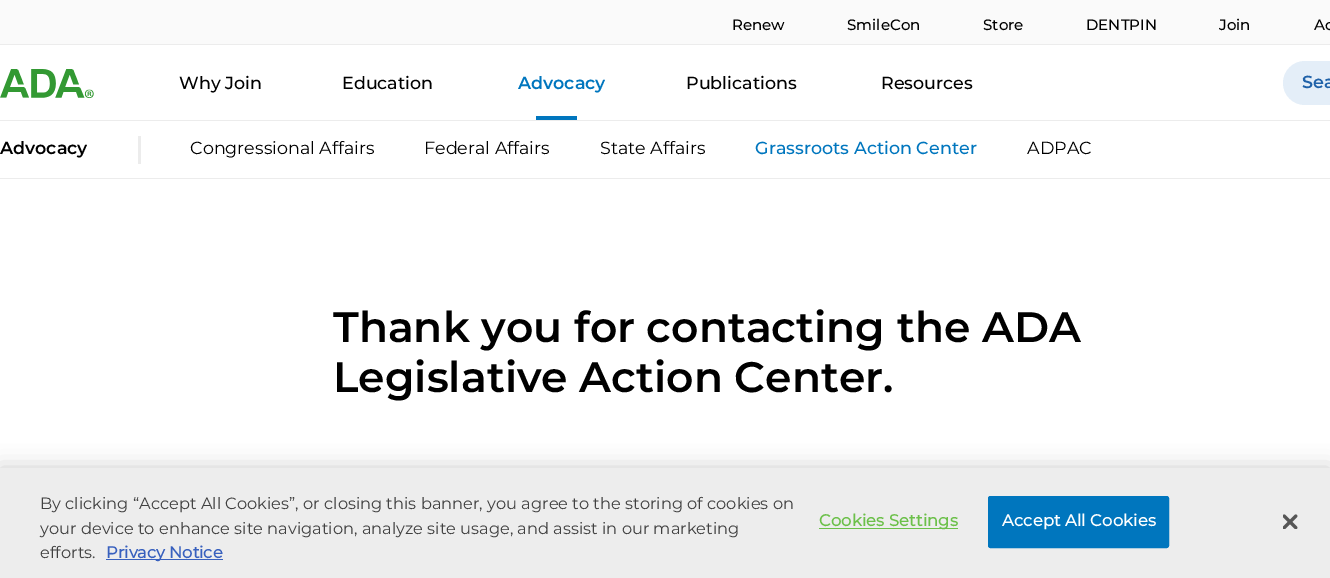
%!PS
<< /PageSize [1330 578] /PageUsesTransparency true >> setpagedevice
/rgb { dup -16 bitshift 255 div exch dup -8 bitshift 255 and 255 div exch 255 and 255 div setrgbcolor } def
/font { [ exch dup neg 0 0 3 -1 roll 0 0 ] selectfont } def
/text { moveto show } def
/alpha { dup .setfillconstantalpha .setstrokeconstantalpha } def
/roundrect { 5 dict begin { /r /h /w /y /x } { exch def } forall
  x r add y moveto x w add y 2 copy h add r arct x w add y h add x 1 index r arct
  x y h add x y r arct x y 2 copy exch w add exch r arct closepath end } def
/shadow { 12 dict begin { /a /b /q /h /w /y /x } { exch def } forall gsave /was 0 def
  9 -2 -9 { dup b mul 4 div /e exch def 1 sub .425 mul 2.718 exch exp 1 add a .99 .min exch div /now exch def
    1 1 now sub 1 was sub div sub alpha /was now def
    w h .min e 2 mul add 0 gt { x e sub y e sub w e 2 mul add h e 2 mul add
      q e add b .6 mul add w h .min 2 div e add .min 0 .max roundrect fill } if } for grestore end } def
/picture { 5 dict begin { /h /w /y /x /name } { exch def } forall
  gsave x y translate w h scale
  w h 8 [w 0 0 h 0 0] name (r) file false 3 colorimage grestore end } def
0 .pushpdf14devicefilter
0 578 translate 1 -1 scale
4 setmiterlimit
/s1 { /Montserrat-Medium 15 font 16#000000 rgb } def
/s2 { /Montserrat-Medium 17.5 font 16#000000 rgb } def
/s3 { /Montserrat-SemiBold 17.5 font 16#0076BE rgb } def
/s4 { /Montserrat-SemiBold 17.5 font 16#2062A9 rgb } def
/s5 { /Montserrat-SemiBold 17.5 font 16#000000 rgb } def
/s6 { /Montserrat-Regular 17.5 font 16#000000 rgb } def
/s7 { /Montserrat-Medium 17.5 font 16#0076BE rgb } def
/s8 { /Montserrat-SemiBold 42.5 font 16#000000 rgb } def
/s9 { /Montserrat-Regular 16.25 font 16#404040 rgb } def
/s10 { /Montserrat-Bold 16.25 font 16#3860BE rgb } def
16#FFFFFF rgb
0 0 1330 578 rectfill
16#FAFAFA rgb
0 0 1330 44 rectfill
16#ECECEC rgb
0 44 1330 1 rectfill
s1
(Renew) 732 30 text
(SmileCon) 847 30 text
(Store) 983 30 text
(DENTPIN) 1086 30 text
(Join) 1219 30 text
(Ac) 1314 30 text
(pic1.raw) 0 69 94 30 picture
s2
(Why Join) 179 89 text
(Education) 342 89 text
16#0076BE rgb
536 116 41 4 rectfill
s3
(Advocacy) 518 89 text
s2
(Publications) 686 89 text
(Resources) 881 89 text
16#E4EEF8 rgb
1283 61 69 44 22 roundrect fill
s4
(Sea) 1302 88 text
16#ECECEC rgb
0 120 1330 1 rectfill
s5
(Advocacy) 0 154 text
16#ECECEC rgb
138 136 3 28 rectfill
s6
(Congressional Affairs) 190 154 text
(Federal Affairs) 424 154 text
(State Affairs) 600 154 text
s7
(Grassroots Action Center) 755 154 text
s6
(ADPAC) 1027 154 text
16#ECECEC rgb
0 178 1330 1 rectfill
s8
(Thank you for contacting the ADA) 333 342 text
(Legislative Action Center.) 333 392 text
0 468 1330 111 0 11 0.2 shadow
16#EDEDED rgb
0 468 1330 110 rectfill
s9
(By clicking “Accept All Cookies”, or closing this banner, you agree to the storing of cookies on) 40 509 text
(your device to enhance site navigation, analyze site usage, and assist in our marketing) 40 534 text
(efforts.) 40 558 text
16#3860BE rgb
106 559 117 1 rectfill
s10
(Privacy Notice) 106 558 text
16#6CC04A rgb
819 528 139 1 rectfill
819 526 moveto 0.2 0 (Cookies Settings) ashow
16#0076BE rgb
988.5 496.5 180 51 2 roundrect gsave fill grestore
stroke
16#FFFFFF rgb
1002 526 moveto 0.2 0 (Accept All Cookies) ashow
(pic2.raw) 1283 514 15 15 picture
.poppdf14devicefilter showpage
